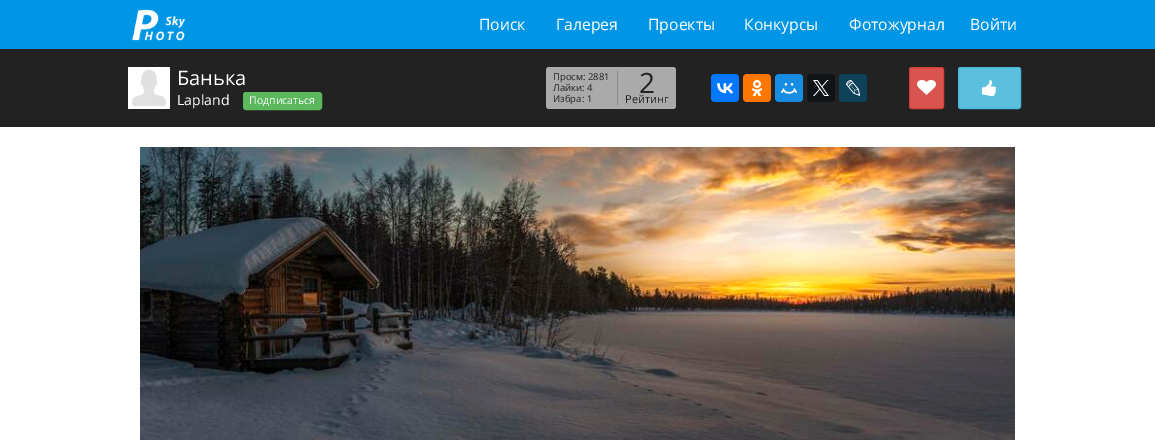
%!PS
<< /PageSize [1155 440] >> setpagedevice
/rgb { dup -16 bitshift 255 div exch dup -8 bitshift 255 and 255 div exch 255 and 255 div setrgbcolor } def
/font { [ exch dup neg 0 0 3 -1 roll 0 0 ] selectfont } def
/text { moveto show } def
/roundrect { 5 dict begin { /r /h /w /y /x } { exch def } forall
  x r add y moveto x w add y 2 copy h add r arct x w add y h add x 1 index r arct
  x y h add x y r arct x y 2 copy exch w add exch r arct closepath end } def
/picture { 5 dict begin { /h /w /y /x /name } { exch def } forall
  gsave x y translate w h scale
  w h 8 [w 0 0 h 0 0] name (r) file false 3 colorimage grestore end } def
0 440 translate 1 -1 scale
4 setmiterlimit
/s1 { /OpenSans-Regular 15.75 font 16#FFFFFF rgb } def
/s2 { /OpenSans-Regular 20 font 16#FFFFFF rgb } def
/s3 { /OpenSans-Regular 14 font 16#FFFFFF rgb } def
/s4 { /OpenSans-Regular 10.5 font 16#FFFFFF rgb } def
/s5 { /OpenSans-Regular 9.5 font 16#222222 rgb } def
/s6 { /OpenSans-Regular 28 font 16#222222 rgb } def
/s7 { /OpenSans-Regular 11 font 16#222222 rgb } def
16#FFFFFF rgb
0 0 1155 440 rectfill
16#0096E5 rgb
0 0 1155 49 rectfill
(pic1.raw) 132 9 54 32 picture
s1
(Поиск) 479 30 text
(Галерея) 556 30 text
(Проекты) 648 30 text
(Конкурсы) 744 30 text
(Фотожурнал) 849 30 text
(Войти) 970 30 text
16#222222 rgb
0 49 1155 78 rectfill
(pic2.raw) 128 67 42 42 picture
s2
(Банька) 177 85 text
s3
(Lapland) 177 105 text
16#5CB85C rgb
243.5 92.5 78 17 2.5 roundrect gsave fill grestore
stroke
s4
(Подписаться) 249 104 text
16#AAAAAA rgb
546 67 130 42 3 roundrect fill
s5
(Просм: 2881) 553 80 text
(Лайки: 4) 553 91 text
(Избра: 1) 553 102 text
16#888888 rgb
617 71 1 34 rectfill
s6
(2) 639 93 text
s7
(Рейтинг) 625 103 text
16#0077FF rgb
711 74 28 28 4 roundrect fill
(pic3.raw) 717 83 16 11 picture
16#FF7700 rgb
743 74 28 28 4 roundrect fill
(pic4.raw) 751 79 12 17 picture
16#168DE2 rgb
775 74 28 28 4 roundrect fill
(pic5.raw) 781 83 16 11 picture
16#0F1419 rgb
807 74 28 28 4 roundrect fill
(pic6.raw) 813 80 16 16 picture
16#0D425A rgb
839 74 28 28 4 roundrect fill
(pic7.raw) 846 80 15 16 picture
16#D9534F rgb
909 67 35 42 3 roundrect fill
(pic8.raw) 917 80 19 15 picture
16#D43F3A rgb
909.5 67.5 34 41 2.5 roundrect stroke
16#5BC0DE rgb
958 67 63 42 3 roundrect fill
(pic9.raw) 982 80 14 16 picture
16#46B8DA rgb
958.5 67.5 62 41 2.5 roundrect stroke
(pic10.raw) 140 147 875 293 picture
showpage
